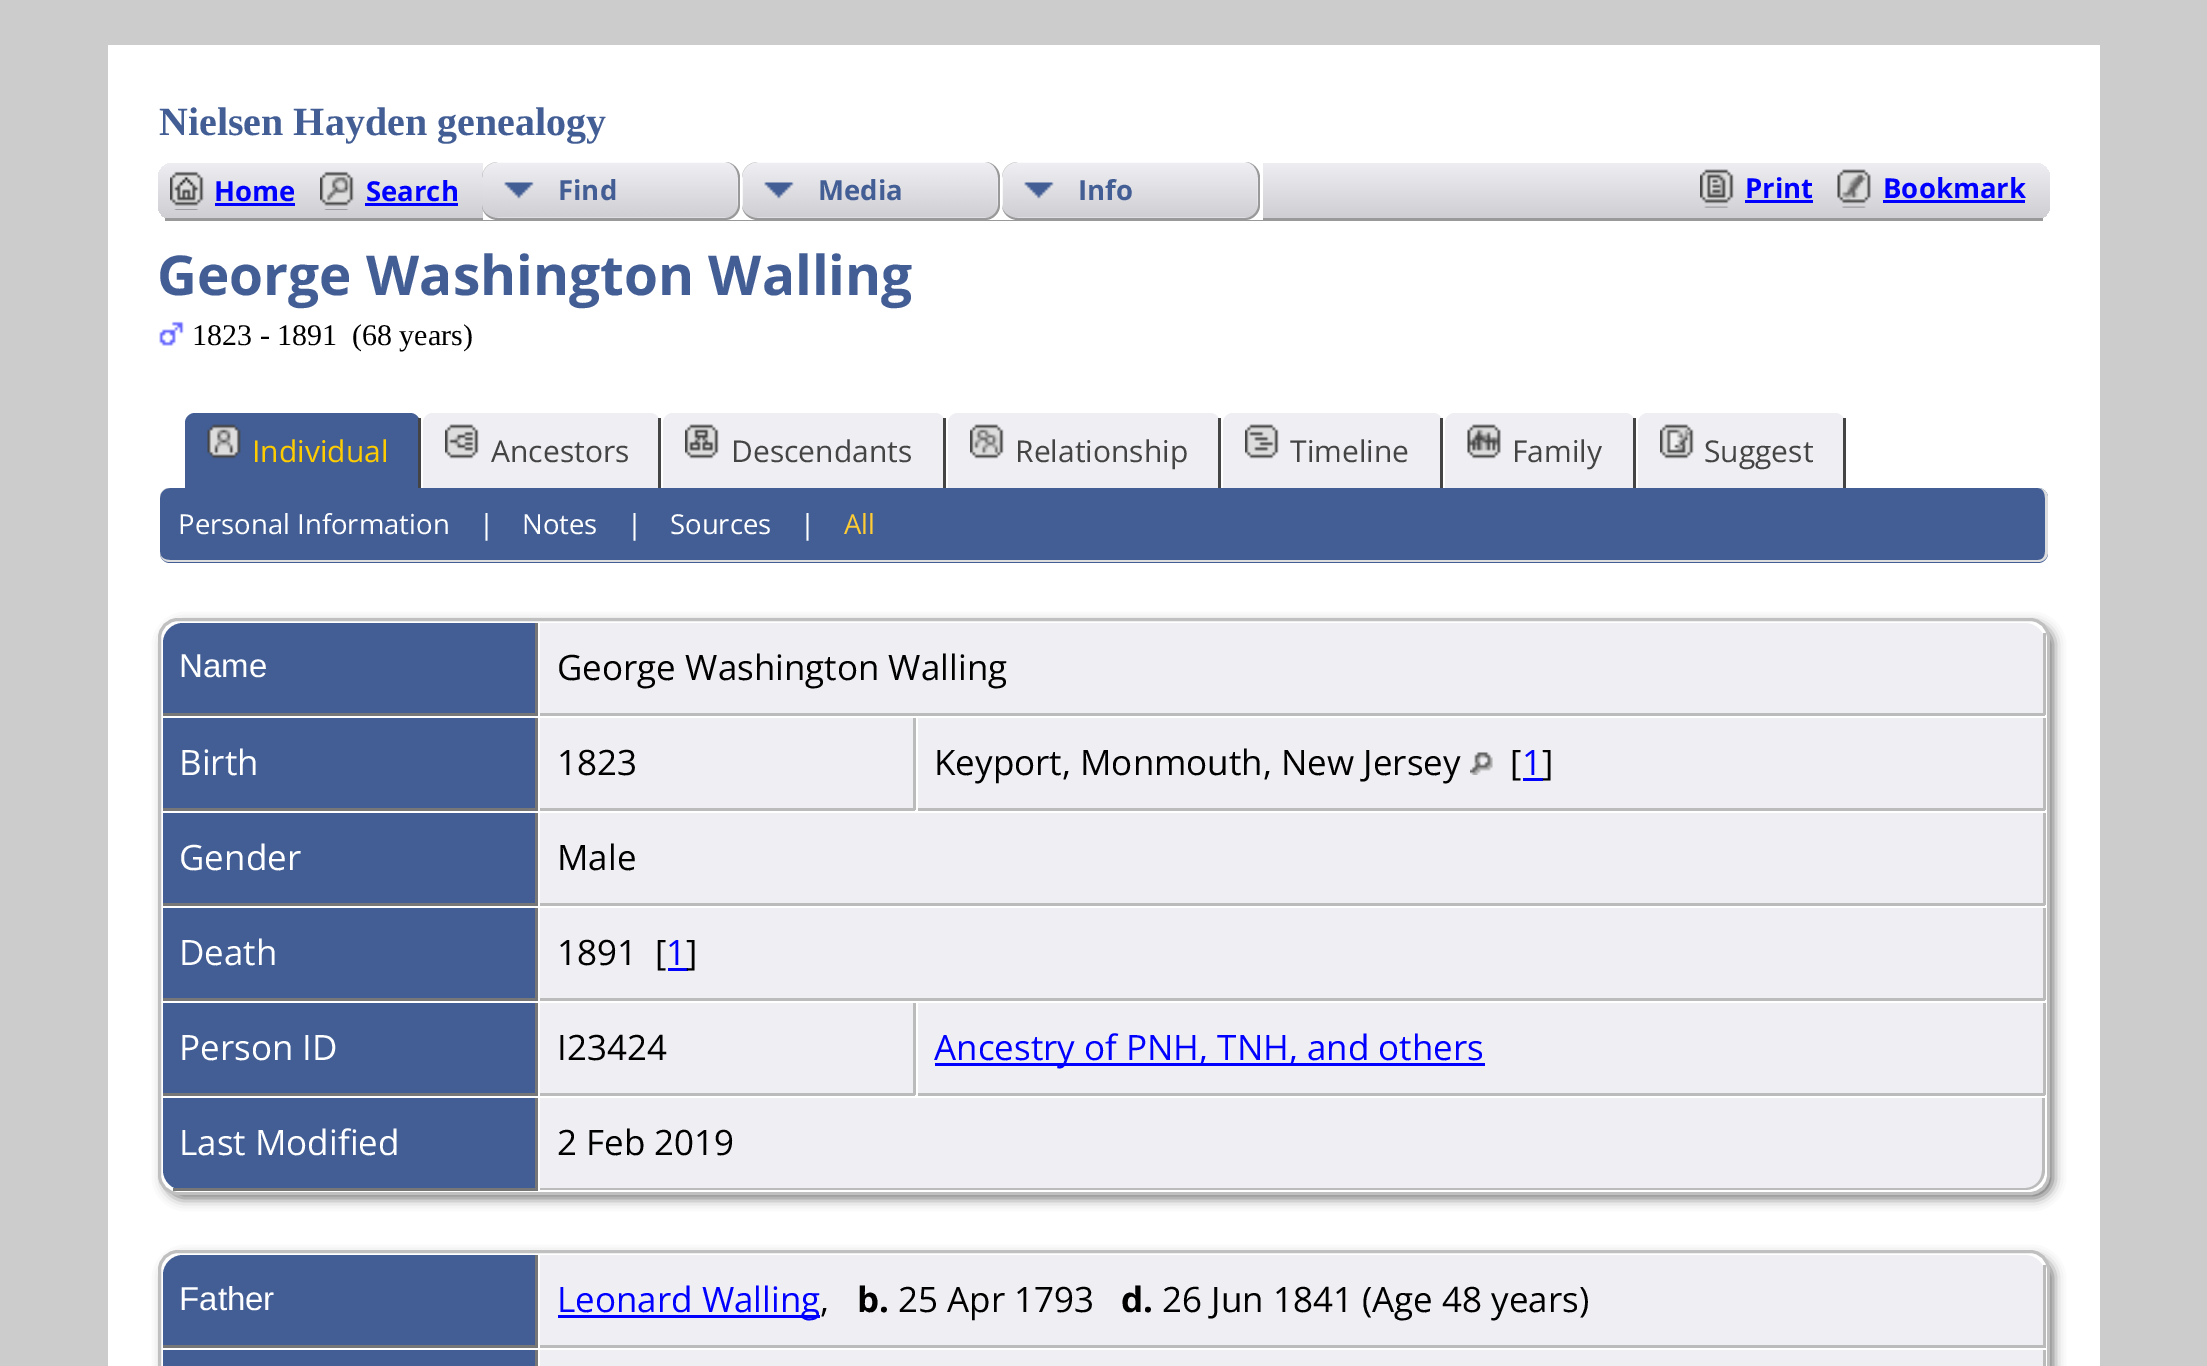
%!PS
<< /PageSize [2207 1366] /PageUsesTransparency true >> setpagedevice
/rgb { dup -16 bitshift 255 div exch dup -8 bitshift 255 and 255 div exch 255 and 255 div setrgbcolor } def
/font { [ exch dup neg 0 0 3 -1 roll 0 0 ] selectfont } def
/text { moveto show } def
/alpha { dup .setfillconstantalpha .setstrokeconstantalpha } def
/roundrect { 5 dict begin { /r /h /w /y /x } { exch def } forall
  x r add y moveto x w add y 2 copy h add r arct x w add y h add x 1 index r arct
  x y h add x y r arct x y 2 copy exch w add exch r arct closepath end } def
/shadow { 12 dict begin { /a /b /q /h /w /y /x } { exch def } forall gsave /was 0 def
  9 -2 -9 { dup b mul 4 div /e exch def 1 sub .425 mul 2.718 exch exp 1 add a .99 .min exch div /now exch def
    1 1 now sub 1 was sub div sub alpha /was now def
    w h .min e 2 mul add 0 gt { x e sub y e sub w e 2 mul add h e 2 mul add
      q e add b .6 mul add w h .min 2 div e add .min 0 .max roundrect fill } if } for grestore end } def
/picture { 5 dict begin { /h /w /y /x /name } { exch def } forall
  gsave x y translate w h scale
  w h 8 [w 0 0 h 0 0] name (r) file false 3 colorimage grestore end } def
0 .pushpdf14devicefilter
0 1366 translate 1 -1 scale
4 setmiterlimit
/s1 { /LiberationSerif-Bold 40 font 16#435E95 rgb } def
/s2 { /OpenSans-Bold 27.5 font 16#0000FF rgb } def
/s3 { /OpenSans-Bold 27.5 font 16#435E95 rgb } def
/s4 { /OpenSans-Bold 55 font 16#435E95 rgb } def
/s5 { /LiberationSerif-Regular 30 font 16#000000 rgb } def
/s6 { /OpenSans-Regular 30 font 16#FFCC00 rgb } def
/s7 { /OpenSans-Regular 30 font 16#444444 rgb } def
/s8 { /OpenSans-Regular 27.5 font 16#FFFFFF rgb } def
/s9 { /OpenSans-Regular 27.5 font 16#FFCC33 rgb } def
/s10 { /LiberationSans-Regular 33 font 16#FFFFFF rgb } def
/s11 { /OpenSans-Regular 35 font 16#000000 rgb } def
/s12 { /OpenSans-Regular 35 font 16#FFFFFF rgb } def
/s13 { /OpenSans-Regular 35 font 16#0000FF rgb } def
/s14 { /OpenSans-Bold 35 font 16#000000 rgb } def
16#CCCCCC rgb
0 0 2207 1366 rectfill
16#FFFFFF rgb
108 45 1992 1321 rectfill
s1
(Nielsen Hayden genealogy) 159 135 text
16#EEEEF3 rgb
158 163 1892 57 15 roundrect fill
gsave
158 163 1892 57 15 roundrect clip newpath
gsave 173 163 moveto 2035 163 lineto 2043.5 163 2050 169.5 2050 178 curveto 2050 218 lineto 158 218 lineto 158 178 lineto 158 169.5 164.5 163 173 163 curveto closepath clip newpath
<< /ShadingType 2 /ColorSpace /DeviceRGB /Coords [1104 162 1104 218] /Extend [true true] /Function << /FunctionType 2 /Domain [0 1] /C0 [0.933 0.933 0.953] /C1 [0.808 0.808 0.827] /N 1 >> >> shfill grestore
grestore
16#999999 rgb
165 218 1878 3 rectfill
(pic1.raw) 170 171 34 39 picture
s2
(Home) 214 201 text
215 203 80 3 rectfill
(pic2.raw) 320 171 34 39 picture
(Search) 366 201 text
365 203 93 3 rectfill
16#FFFFFF rgb
483 163 780 57 rectfill
16#EEEEF3 rgb
483 163 257 57 15 roundrect fill
(pic3.raw) 483 162 255 56 picture
16#999999 rgb
498 162 moveto 725 162 lineto 733 162 740 169 740 178 curveto 740 205 lineto 740 213 733 220 725 220 curveto 498 220 lineto 489 220 482 213 482 205 curveto 482 178 lineto 482 169 489 162 498 162 curveto closepath 498 162 moveto 725 162 lineto 732 162 738 169 738 178 curveto 738 205 lineto 738 212 732 218 725 218 curveto 498 218 lineto 489 218 482 212 482 205 curveto 482 178 lineto 482 169 489 162 498 162 curveto closepath eofill
s3
(Find) 558 200 text
16#EEEEF3 rgb
743 163 257 57 15 roundrect fill
(pic4.raw) 742 162 256 56 picture
16#999999 rgb
758 162 moveto 985 162 lineto 993 162 1000 169 1000 178 curveto 1000 205 lineto 1000 213 993 220 985 220 curveto 758 220 lineto 749 220 742 213 742 205 curveto 742 178 lineto 742 169 749 162 758 162 curveto closepath 758 162 moveto 985 162 lineto 992 162 998 169 998 178 curveto 998 205 lineto 998 212 992 218 985 218 curveto 758 218 lineto 749 218 742 212 742 205 curveto 742 178 lineto 742 169 749 162 758 162 curveto closepath eofill
s3
(Media) 818 200 text
16#EEEEF3 rgb
1003 163 257 57 15 roundrect fill
(pic5.raw) 1002 162 256 56 picture
16#999999 rgb
1018 162 moveto 1245 162 lineto 1253 162 1260 169 1260 178 curveto 1260 205 lineto 1260 213 1253 220 1245 220 curveto 1018 220 lineto 1009 220 1002 213 1002 205 curveto 1002 178 lineto 1002 169 1009 162 1018 162 curveto closepath 1018 162 moveto 1245 162 lineto 1252 162 1258 169 1258 178 curveto 1258 205 lineto 1258 212 1252 218 1245 218 curveto 1018 218 lineto 1009 218 1002 212 1002 205 curveto 1002 178 lineto 1002 169 1009 162 1018 162 curveto closepath eofill
s3
(Info) 1078 200 text
(pic6.raw) 1700 169 34 39 picture
s2
(Print) 1745 198 text
1745 200 68 3 rectfill
(pic7.raw) 1837 169 34 39 picture
(Bookmark) 1883 198 text
1883 200 142 3 rectfill
s4
(George Washington Walling) 157 295 text
(pic8.raw) 159 321 25 25 picture
s5
(1823 - 1891  \(68 years\)) 192 345 text
16#435E95 rgb
195 413 moveto 410 413 lineto 415.5 413 420 417.5 420 423 curveto 420 488 lineto 185 488 lineto 185 423 lineto 185 417.5 189.5 413 195 413 curveto closepath fill
16#444444 rgb
418 418 3 70 rectfill
(pic9.raw) 207 424 34 35 picture
s6
(Individual) 252 462 text
16#EEEEF3 rgb
433 413 moveto 650 413 lineto 655.5 413 660 417.5 660 423 curveto 660 488 lineto 423 488 lineto 423 423 lineto 423 417.5 427.5 413 433 413 curveto closepath fill
16#444444 rgb
658 418 3 70 rectfill
(pic10.raw) 445 424 34 35 picture
(Ancestors) 491 462 text
16#EEEEF3 rgb
673 413 moveto 935 413 lineto 940.5 413 945 417.5 945 423 curveto 945 488 lineto 663 488 lineto 663 423 lineto 663 417.5 667.5 413 673 413 curveto closepath fill
16#444444 rgb
943 418 3 70 rectfill
(pic11.raw) 685 424 34 35 picture
(Descendants) 731 462 text
16#EEEEF3 rgb
958 413 moveto 1210 413 lineto 1215.5 413 1220 417.5 1220 423 curveto 1220 488 lineto 948 488 lineto 948 423 lineto 948 417.5 952.5 413 958 413 curveto closepath fill
16#444444 rgb
1218 418 3 70 rectfill
(pic12.raw) 970 424 34 35 picture
(Relationship) 1015 462 text
16#EEEEF3 rgb
1233 413 moveto 1433 413 lineto 1438.5 413 1443 417.5 1443 423 curveto 1443 488 lineto 1223 488 lineto 1223 423 lineto 1223 417.5 1227.5 413 1233 413 curveto closepath fill
16#444444 rgb
1440 418 3 70 rectfill
(pic13.raw) 1245 424 34 35 picture
(Timeline) 1290 462 text
16#EEEEF3 rgb
1455 413 moveto 1625 413 lineto 1630.5 413 1635 417.5 1635 423 curveto 1635 488 lineto 1445 488 lineto 1445 423 lineto 1445 417.5 1449.5 413 1455 413 curveto closepath fill
16#444444 rgb
1633 418 3 70 rectfill
(pic14.raw) 1467 424 34 35 picture
(Family) 1512 462 text
16#EEEEF3 rgb
1648 413 moveto 1835 413 lineto 1840.5 413 1845 417.5 1845 423 curveto 1845 488 lineto 1638 488 lineto 1638 423 lineto 1638 417.5 1642.5 413 1648 413 curveto closepath fill
16#444444 rgb
1843 418 3 70 rectfill
(pic15.raw) 1660 424 34 35 picture
(Suggest) 1704 462 text
16#435E95 rgb
160 488 1888 75 10 roundrect fill
16#DDDDDD rgb
170 488 moveto 2038 488 lineto 2043 488 2048 492 2048 498 curveto 2048 552 lineto 2048 558 2043 562 2038 562 curveto 170 562 lineto 164 562 160 558 160 552 curveto 160 498 lineto 160 492 164 488 170 488 curveto closepath 170 488 moveto 2038 488 lineto 2042 488 2045 492 2045 498 curveto 2045 552 lineto 2045 557 2042 560 2038 560 curveto 170 560 lineto 164 560 160 557 160 552 curveto 160 498 lineto 160 492 164 488 170 488 curveto closepath eofill
s8
(Personal Information) 178 534 text
(|) 479 534 text
(Notes) 522 534 text
(|) 627 534 text
(Sources) 670 534 text
(|) 800 534 text
s9
(All) 844 534 text
16#666666 rgb
165 625 1888 573 18 6 1 shadow
16#FFFFFF rgb
159.5 619.5 1889 574 18.5 roundrect gsave fill grestore
16#C0C0C0 rgb
3 setlinewidth
stroke
16#435E95 rgb
183 623 moveto 538 623 lineto 538 715 lineto 163 715 lineto 163 643 lineto 163 632 172 623 183 623 curveto closepath fill
16#777777 rgb
535 623 3 92 rectfill
163 713 375 3 rectfill
s10
(Name) 179 677 text
16#EEEEF3 rgb
540 623 moveto 2025 623 lineto 2036 623 2045 632 2045 643 curveto 2045 715 lineto 540 715 lineto closepath fill
16#BBBBBB rgb
2043 633 3 82 rectfill
540 713 1505 3 rectfill
s11
(George Washington Walling) 557 680 text
16#435E95 rgb
163 718 372 90 rectfill
16#777777 rgb
535 718 3 92 rectfill
163 808 375 3 rectfill
s12
(Birth) 179 775 text
16#EEEEF3 rgb
540 718 373 90 rectfill
16#BBBBBB rgb
913 718 3 92 rectfill
540 808 375 3 rectfill
s11
(1823) 557 775 text
16#EEEEF3 rgb
918 718 1125 90 rectfill
16#BBBBBB rgb
2043 718 3 92 rectfill
918 808 1127 3 rectfill
s11
(Keyport, Monmouth, New Jersey) 934 775 text
(pic16.raw) 1470 752 23 23 picture
([) 1510 775 text
s13
(1) 1522 775 text
1523 778 20 3 rectfill
s11
(]) 1542 775 text
16#435E95 rgb
163 813 372 90 rectfill
16#777777 rgb
535 813 3 92 rectfill
163 903 375 3 rectfill
s12
(Gender) 179 870 text
16#EEEEF3 rgb
540 813 1503 90 rectfill
16#BBBBBB rgb
2043 813 3 92 rectfill
540 903 1505 3 rectfill
s11
(Male) 557 870 text
16#435E95 rgb
163 908 372 90 rectfill
16#777777 rgb
535 908 3 92 rectfill
163 998 375 3 rectfill
s12
(Death) 179 965 text
16#EEEEF3 rgb
540 908 1503 90 rectfill
16#BBBBBB rgb
2043 908 3 92 rectfill
540 998 1505 3 rectfill
s11
(1891  [) 557 965 text
s13
(1) 666 965 text
668 968 20 3 rectfill
s11
(]) 686 965 text
16#435E95 rgb
163 1003 372 90 rectfill
16#777777 rgb
535 1003 3 92 rectfill
163 1093 375 3 rectfill
s12
(Person ID) 179 1060 text
16#EEEEF3 rgb
540 1003 373 90 rectfill
16#BBBBBB rgb
913 1003 3 92 rectfill
540 1093 375 3 rectfill
s11
(I23424) 557 1060 text
16#EEEEF3 rgb
918 1003 1125 90 rectfill
16#BBBBBB rgb
2043 1003 3 92 rectfill
918 1093 1127 3 rectfill
16#0000FF rgb
935 1063 550 3 rectfill
(Ancestry of PNH, TNH, and others) 934 1060 text
16#435E95 rgb
163 1098 moveto 538 1098 lineto 538 1190 lineto 183 1190 lineto 172 1190 163 1181 163 1170 curveto closepath fill
16#777777 rgb
535 1098 3 92 rectfill
173 1188 365 3 rectfill
s12
(Last Modified) 179 1155 text
16#EEEEF3 rgb
540 1098 moveto 2045 1098 lineto 2045 1170 lineto 2045 1181 2036 1190 2025 1190 curveto 540 1190 lineto closepath fill
16#BBBBBB rgb
540 1098 moveto 2045 1098 lineto 2045 1170 lineto 2045 1181 2036 1190 2025 1190 curveto 540 1190 lineto closepath 540 1098 moveto 2042 1098 lineto 2042 1170 lineto 2042 1180 2035 1188 2025 1188 curveto 540 1188 lineto closepath eofill
s11
(2 Feb 2019) 557 1155 text
16#666666 rgb
165 1258 1888 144 18 6 1 shadow
16#FFFFFF rgb
159.5 1251.5 1889 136 18.5 roundrect gsave fill grestore
16#C0C0C0 rgb
stroke
16#435E95 rgb
183 1255 moveto 538 1255 lineto 538 1348 lineto 163 1348 lineto 163 1275 lineto 163 1264 172 1255 183 1255 curveto closepath fill
16#777777 rgb
535 1255 3 93 rectfill
163 1345 375 3 rectfill
s10
(Father) 179 1310 text
16#EEEEF3 rgb
540 1255 moveto 2025 1255 lineto 2036 1255 2045 1264 2045 1275 curveto 2045 1348 lineto 540 1348 lineto closepath fill
16#BBBBBB rgb
2043 1265 3 83 rectfill
540 1345 1505 3 rectfill
16#0000FF rgb
558 1315 262 3 rectfill
s13
(Leonard Walling) 557 1312 text
s11
(,) 820 1312 text
s14
(b.) 857 1312 text
s11
(25 Apr 1793) 898 1312 text
s14
(d.) 1121 1312 text
s11
(26 Jun 1841 \(Age 48 years\)) 1162 1312 text
16#435E95 rgb
163 1350 372 16 rectfill
16#777777 rgb
535 1350 3 16 rectfill
16#EEEEF3 rgb
540 1350 1503 16 rectfill
16#BBBBBB rgb
2043 1350 3 16 rectfill
.poppdf14devicefilter showpage
